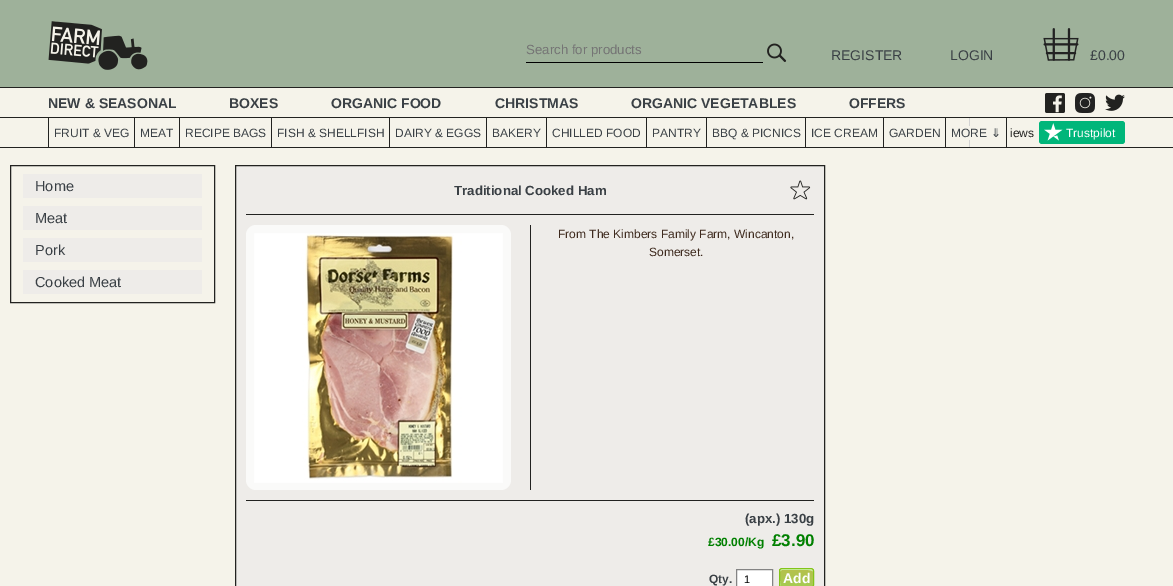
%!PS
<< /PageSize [1173 586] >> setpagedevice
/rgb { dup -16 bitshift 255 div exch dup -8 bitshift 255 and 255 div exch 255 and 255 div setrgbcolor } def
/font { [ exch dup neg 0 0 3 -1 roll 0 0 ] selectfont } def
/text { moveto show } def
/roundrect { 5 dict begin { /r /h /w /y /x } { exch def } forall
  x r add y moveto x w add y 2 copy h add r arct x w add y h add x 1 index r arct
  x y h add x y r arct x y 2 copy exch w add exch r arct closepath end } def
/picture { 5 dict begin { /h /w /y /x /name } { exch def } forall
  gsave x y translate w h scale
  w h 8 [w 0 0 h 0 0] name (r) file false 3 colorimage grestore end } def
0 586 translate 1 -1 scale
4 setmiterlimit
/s1 { /LiberationSans-Regular 13.25 font 16#757575 rgb } def
/s2 { /LiberationSans-Regular 14 font 16#3A4045 rgb } def
/s3 { /LiberationSans-Bold 14 font 16#3A4045 rgb } def
/s4 { /LiberationSans-Regular 12 font 16#3A4045 rgb } def
/s5 { /DejaVuSans-Regular 12 font 16#3A4045 rgb } def
/s6 { /LiberationSans-Regular 12 font 16#222220 rgb } def
/s7 { /LiberationSans-Regular 12 font 16#FFFFFF rgb } def
/s8 { /LiberationSans-Regular 14.5 font 16#3A4045 rgb } def
/s9 { /LiberationSans-Bold 13.25 font 16#3A4045 rgb } def
/s10 { /LiberationSans-Regular 12 font 16#3E2A1E rgb } def
/s11 { /LiberationSans-Bold 12 font 16#008000 rgb } def
/s12 { /LiberationSans-Bold 17 font 16#008000 rgb } def
/s13 { /LiberationSans-Bold 12 font 16#3A4045 rgb } def
/s14 { /LiberationSans-Regular 11 font 16#000000 rgb } def
/s15 { /LiberationSans-Bold 14 font 16#FFFFFF rgb } def
16#F5F3EA rgb
0 0 1173 586 rectfill
16#9EB19A rgb
0 0 1173 87 rectfill
16#222220 rgb
0 87 1173 1 rectfill
(pic1.raw) 48 21 100 49 picture
16#000000 rgb
526 62 237 1 rectfill
s1
(Search for products) 526 54 text
(pic2.raw) 767 43 20 19 picture
s2
(REGISTER) 831 60 text
(LOGIN) 950 60 text
(pic3.raw) 1043 28 36 33 picture
(£0.00) 1090 60 text
16#222220 rgb
0 117 1173 1 rectfill
s3
(NEW & SEASONAL) 48 108 text
(BOXES) 229 108 text
(ORGANIC FOOD) 331 108 text
(CHRISTMAS) 495 108 text
(ORGANIC VEGETABLES) 631 108 text
(OFFERS) 849 108 text
(pic4.raw) 1045 93 20 20 picture
(pic5.raw) 1075 93 20 20 picture
(pic6.raw) 1105 94 20 17 picture
16#222220 rgb
0 147 1173 1 rectfill
134 118 1 29 rectfill
48 118 1 29 rectfill
s4
(FRUIT & VEG) 54 137 text
16#222220 rgb
179 118 1 29 rectfill
s4
(MEAT) 140 137 text
16#222220 rgb
271 118 1 29 rectfill
s4
(RECIPE BAGS) 185 137 text
16#222220 rgb
389 118 1 29 rectfill
s4
(FISH & SHELLFISH) 277 137 text
16#222220 rgb
486 118 1 29 rectfill
s4
(DAIRY & EGGS) 395 137 text
16#222220 rgb
546 118 1 29 rectfill
s4
(BAKERY) 492 137 text
16#222220 rgb
646 118 1 29 rectfill
s4
(CHILLED FOOD) 552 137 text
16#222220 rgb
706 118 1 29 rectfill
s4
(PANTRY) 652 137 text
16#222220 rgb
805 118 1 29 rectfill
s4
(BBQ & PICNICS) 712 137 text
16#222220 rgb
883 118 1 29 rectfill
s4
(ICE CREAM) 811 137 text
16#222220 rgb
945 118 1 29 rectfill
s4
(GARDEN) 889 137 text
16#222220 rgb
1006 118 1 29 rectfill
16#D3D3D3 rgb
969 118 1 29 rectfill
16#F5F3EA rgb
969 126 1 14 rectfill
s4
(MORE) 951 137 text
s5
(⇓) 991 137 text
s6
(iews) 1010 137 text
16#00B67A rgb
1042 121 moveto 1066 121 lineto 1066 144 lineto 1042 144 lineto 1040.5 144 1039 142.5 1039 141 curveto 1039 124 lineto 1039 122.5 1040.5 121 1042 121 curveto closepath fill
(pic7.raw) 1044 123 19 18 picture
1066 121 moveto 1122 121 lineto 1123.5 121 1125 122.5 1125 124 curveto 1125 141 lineto 1125 142.5 1123.5 144 1122 144 curveto 1066 144 lineto closepath fill
s7
(Trustpilot) 1066 137 text
16#222220 rgb
10.5 165.5 204 137 rectstroke
16#EEECE9 rgb
23 174 179 24 rectfill
s8
(Home) 35 191 text
16#EEECE9 rgb
23 206 179 24 rectfill
s8
(Meat) 35 223 text
16#EEECE9 rgb
23 238 179 24 rectfill
s8
(Pork) 35 255 text
16#EEECE9 rgb
23 270 179 24 rectfill
s8
(Cooked Meat) 35 287 text
16#EEECE9 rgb
235.5 165.5 moveto 824.5 165.5 lineto 824.5 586.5 lineto 235.5 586.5 lineto closepath gsave fill grestore
16#222220 rgb
stroke
s9
(Traditional Cooked Ham) 454 195 text
(pic8.raw) 790 180 21 20 picture
16#222220 rgb
246 214 568 1 rectfill
530 225 1 265 rectfill
16#FAFAF9 rgb
246 225 265 265 10 roundrect fill
(pic9.raw) 254 233 249 250 picture
s10
(From The Kimbers Family Farm, Wincanton,) 558 238 text
(Somerset.) 649 256 text
16#222220 rgb
246 500 568 1 rectfill
s9
(\(apx.\) 130g) 745 523 text
s11
(£30.00/Kg) 708 546 text
s12
(£3.90) 772 546 text
s13
(Qty.) 709 583 text
16#FFFFFF rgb
736.5 569.5 moveto 772.5 569.5 lineto 772.5 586.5 lineto 736.5 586.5 lineto closepath gsave fill grestore
16#848484 rgb
stroke
s14
(1) 744 583 text
gsave
779 568 35 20 3 roundrect clip newpath
gsave 779 569 moveto 814 569 lineto 814 586 lineto 779 586 lineto closepath clip newpath
<< /ShadingType 2 /ColorSpace /DeviceRGB /Coords [797 569 797 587] /Extend [true true] /Function << /FunctionType 3 /Domain [0 1] /Functions [<< /FunctionType 2 /Domain [0 1] /C0 [0.71 0.757 0.302] /C1 [0.71 0.757 0.302] /N 1 >> << /FunctionType 2 /Domain [0 1] /C0 [0.71 0.757 0.302] /C1 [0.647 0.8 0.322] /N 1 >>] /Bounds [0.05] /Encode [0 1 0 1] >> >> shfill grestore
grestore
16#D9FBBE rgb
782 570 moveto 798 570 lineto 799 570 812 569 813 571.5 curveto 813 568 808.5 569 806 569 curveto 787 569 lineto 784.5 569 780 568 780 571.5 curveto 780.5 570.5 781 570 782 570 curveto closepath 780.5 586 moveto 780 581 lineto 780 582.5 779.5 584.5 780.5 586 curveto closepath eofill
16#83C41A rgb
779.5 568.5 34 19 2.5 roundrect stroke
s15
(Add) 783 583 text
showpage
